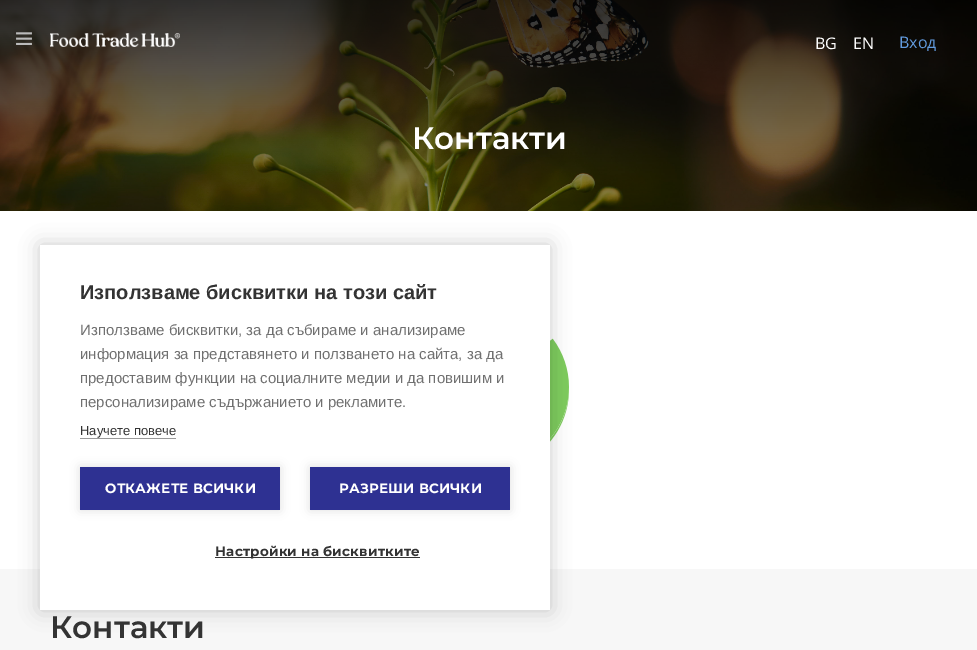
%!PS
<< /PageSize [977 650] /PageUsesTransparency true >> setpagedevice
/rgb { dup -16 bitshift 255 div exch dup -8 bitshift 255 and 255 div exch 255 and 255 div setrgbcolor } def
/font { [ exch dup neg 0 0 3 -1 roll 0 0 ] selectfont } def
/text { moveto show } def
/alpha { dup .setfillconstantalpha .setstrokeconstantalpha } def
/roundrect { 5 dict begin { /r /h /w /y /x } { exch def } forall
  x r add y moveto x w add y 2 copy h add r arct x w add y h add x 1 index r arct
  x y h add x y r arct x y 2 copy exch w add exch r arct closepath end } def
/shadow { 12 dict begin { /a /b /q /h /w /y /x } { exch def } forall gsave /was 0 def
  9 -2 -9 { dup b mul 4 div /e exch def 1 sub .425 mul 2.718 exch exp 1 add a .99 .min exch div /now exch def
    1 1 now sub 1 was sub div sub alpha /was now def
    w h .min e 2 mul add 0 gt { x e sub y e sub w e 2 mul add h e 2 mul add
      q e add b .6 mul add w h .min 2 div e add .min 0 .max roundrect fill } if } for grestore end } def
/picture { 5 dict begin { /h /w /y /x /name } { exch def } forall
  gsave x y translate w h scale
  w h 8 [w 0 0 h 0 0] name (r) file false 3 colorimage grestore end } def
0 .pushpdf14devicefilter
0 650 translate 1 -1 scale
4 setmiterlimit
/s1 { /OpenSans-Regular 16 font 16#FFFFFF rgb } def
/s2 { /OpenSans-Regular 16 font 16#629BDE rgb } def
/s3 { /Montserrat-SemiBold 31 font 16#FFFFFF rgb } def
/s4 { /Montserrat-SemiBold 31 font 16#333333 rgb } def
/s5 { /LiberationSans-Bold 20 font 16#333333 rgb } def
/s6 { /LiberationSans-Regular 15 font 16#707070 rgb } def
/s7 { /LiberationSans-Regular 13 font 16#333333 rgb } def
16#FFFFFF rgb
0 0 977 650 rectfill
(pic3.raw) 0 0 977 211 picture
(pic1.raw) 16 32 16 13 picture
(pic2.raw) 50 33 130 14 picture
s1
(BG) 815 49 text
(EN) 853 49 text
s2
(Вход) 899 48 text
s3
(Контакти) 412 149 text
(pic4.raw) 550 368 19 74 picture
(pic5.raw) 550 335 19 104 picture
16#F7F7F7 rgb
0 569 977 81 rectfill
s4
(Контакти) 50 638 text
16#000000 rgb
40 245 510 365 0 10 0.2 shadow
16#FFFFFF rgb
40 245 510 365 rectfill
s5
(Използваме бисквитки на този сайт) 80 299 text
s6
(Използваме бисквитки, за да събираме и анализираме) 80 335 text
(информация за представянето и ползването на сайта, за да) 80 359 text
(предоставим функции на социалните медии и да повишим и) 80 383 text
(персонализираме съдържанието и рекламите.) 80 407 text
s7
(Научете повече) 80 435 text
16#999999 rgb
80 438 96 1 rectfill
16#000000 rgb
80 467 200 43 0 5 0.12 shadow
16#2E3192 rgb
80 467 200 43 rectfill
/Montserrat-Bold 13.5 font
16#FFFFFF rgb
105 493 moveto 0.2 0 (ОТКАЖЕТЕ ВСИЧКИ) ashow
16#000000 rgb
310 467 200 43 0 5 0.12 shadow
16#2E3192 rgb
310 467 200 43 rectfill
16#FFFFFF rgb
339 493 moveto 0.2 0 (РАЗРЕШИ ВСИЧКИ) ashow
16#333333 rgb
215 557 205 1 rectfill
215 556 moveto 0.2 0 (Настройки на бисквитките) ashow
.poppdf14devicefilter showpage
